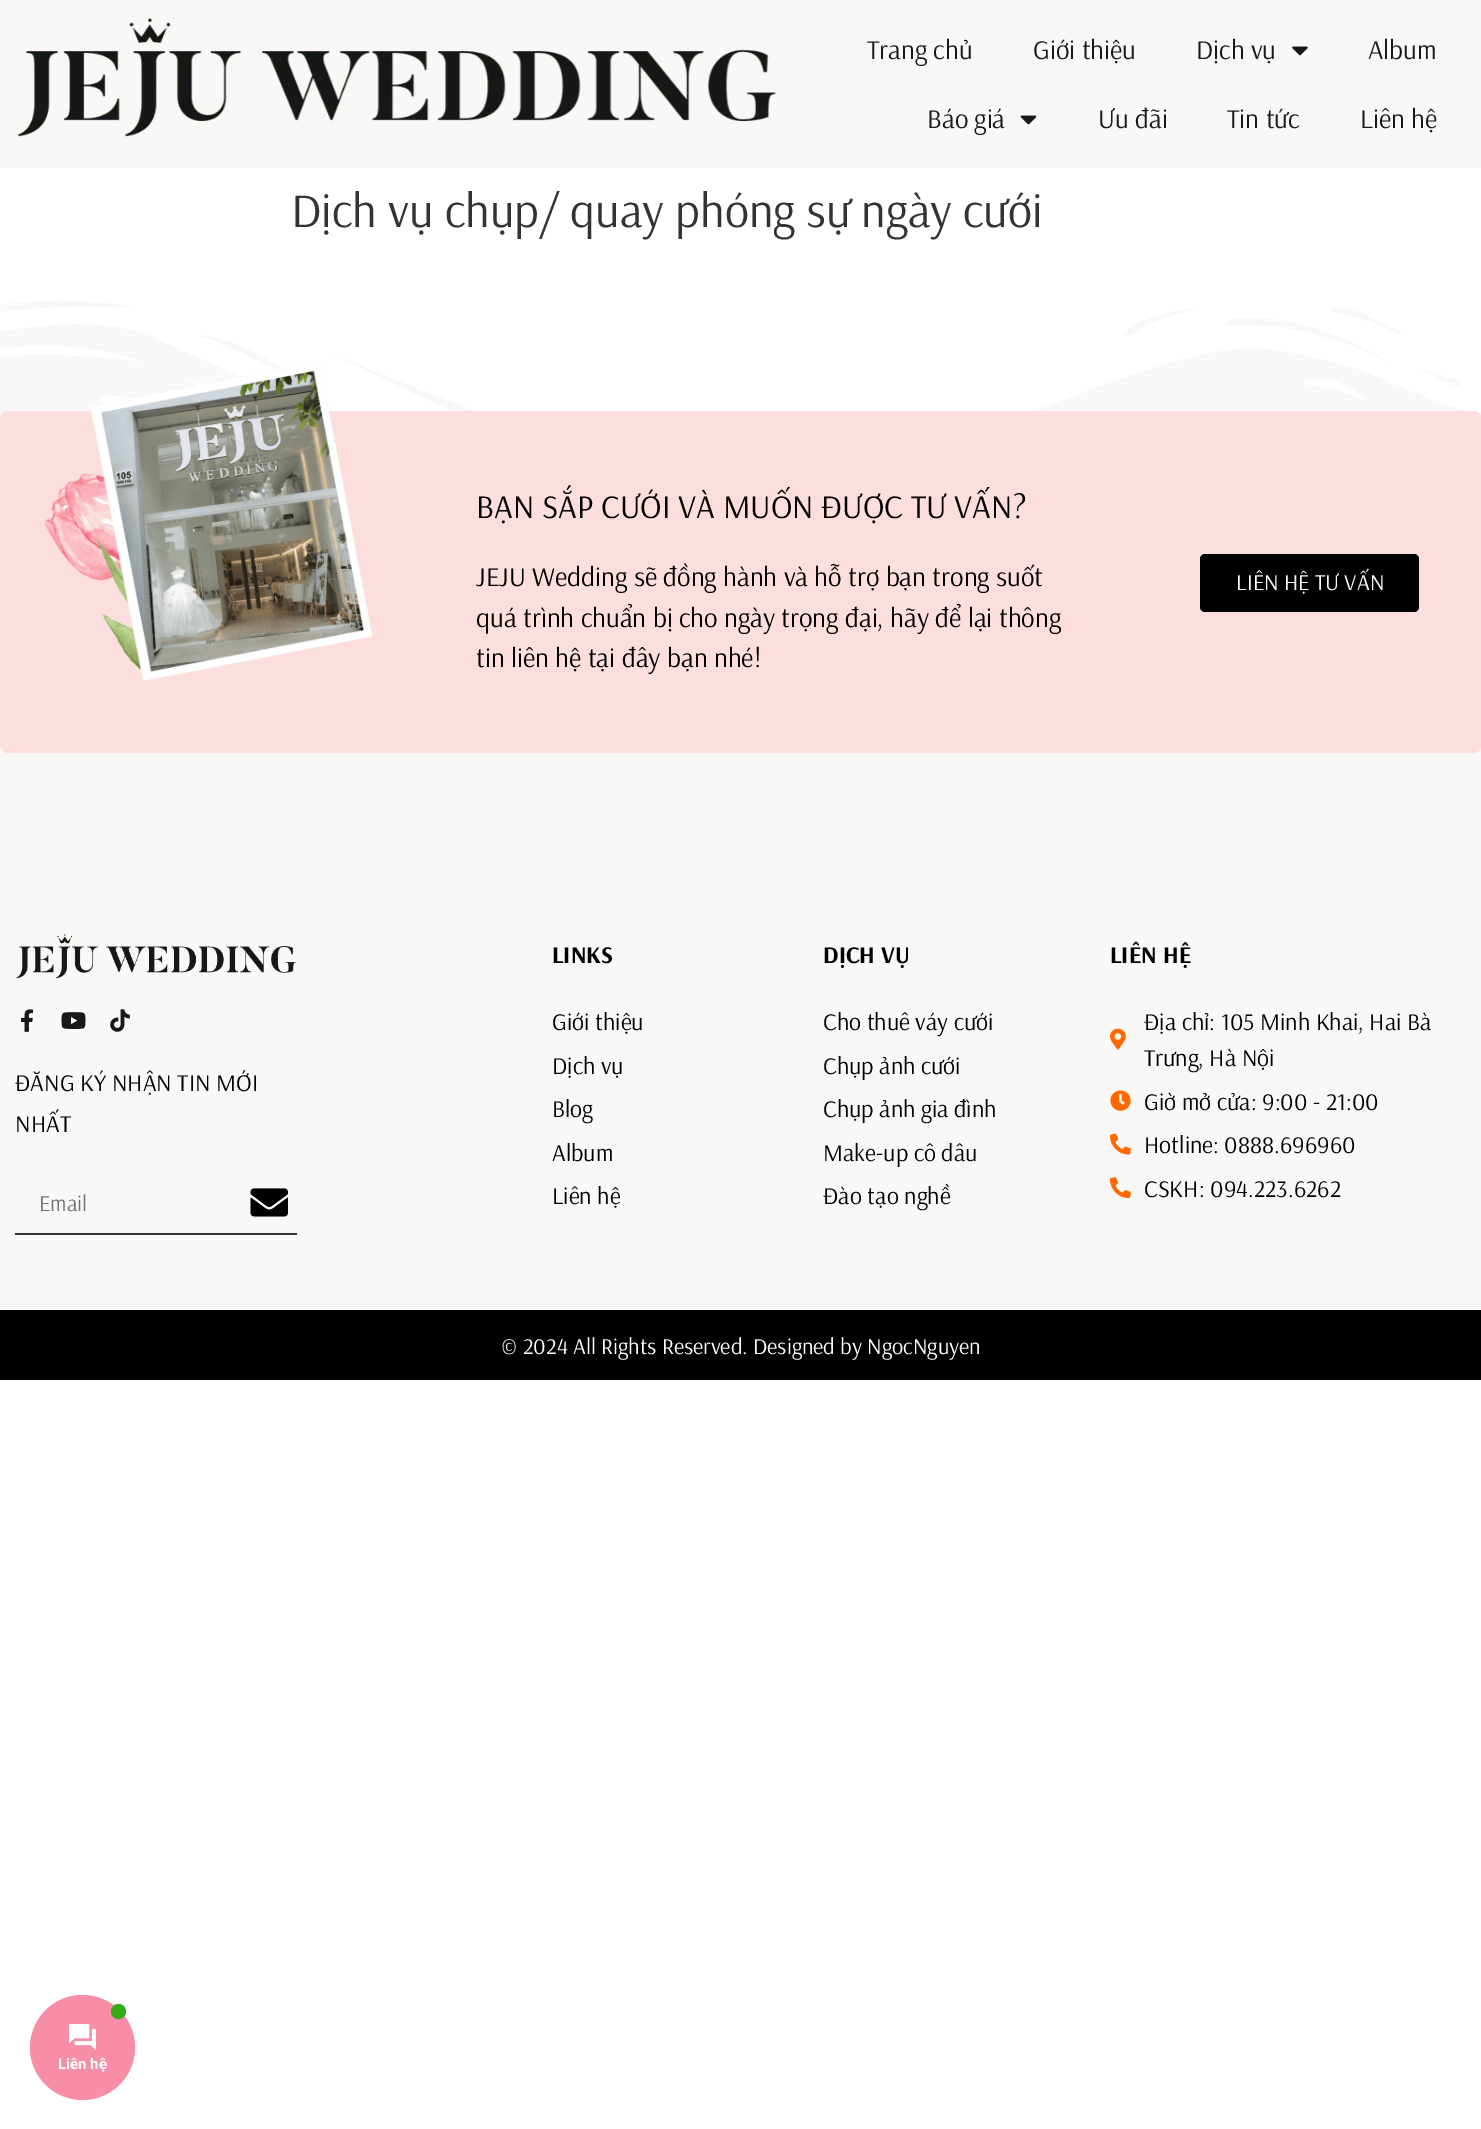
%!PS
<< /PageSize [1481 2129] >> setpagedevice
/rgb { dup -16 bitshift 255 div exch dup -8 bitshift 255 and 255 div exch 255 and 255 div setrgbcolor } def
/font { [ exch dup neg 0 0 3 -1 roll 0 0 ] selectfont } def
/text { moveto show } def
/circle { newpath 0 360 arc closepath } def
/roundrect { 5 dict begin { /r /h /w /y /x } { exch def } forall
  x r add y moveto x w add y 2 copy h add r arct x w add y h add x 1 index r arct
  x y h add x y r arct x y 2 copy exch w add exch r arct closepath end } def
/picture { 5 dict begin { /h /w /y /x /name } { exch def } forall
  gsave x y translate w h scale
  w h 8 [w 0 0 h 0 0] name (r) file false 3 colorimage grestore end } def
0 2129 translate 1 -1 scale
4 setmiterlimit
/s1 { /Arsenal-Regular 27 font 16#181818 rgb } def
/s2 { /Arsenal-Regular 48 font 16#333333 rgb } def
/s3 { /Arsenal-Regular 33 font 16#000000 rgb } def
/s4 { /Arsenal-Regular 27 font 16#000000 rgb } def
/s5 { /Arsenal-Regular 22.5 font 16#FFFFFF rgb } def
/s6 { /Arsenal-Regular 24 font 16#000000 rgb } def
/s7 { /Arsenal-Regular 22.5 font 16#727271 rgb } def
/s8 { /Arsenal-Bold 24 font 16#000000 rgb } def
/s9 { /Roboto-Bold 15 font 16#FFFFFF rgb } def
16#FFFFFF rgb
0 0 1481 2129 rectfill
16#FAF8F7 rgb
0 0 1481 168 rectfill
(pic1.raw) 18 18 758 119 picture
s1
(Trang chủ) 867 59 text
(Giới thiệu) 1033 59 text
(Dịch vụ) 1196 59 text
(pic2.raw) 1292 46 16 10 picture
(Album) 1368 59 text
(Báo giá) 927 128 text
(pic3.raw) 1020 115 17 10 picture
(Ưu đãi) 1098 128 text
(Tin tức) 1227 128 text
(Liên hệ) 1360 128 text
s2
(Dịch vụ chụp/ quay phóng sự ngày cưới) 291 227 text
16#FAF8F7 rgb
0 300 1481 1010 rectfill
(pic4.raw) 0 261 1481 154 picture
16#FCDEDE rgb
0 411 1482 342 9 roundrect fill
(pic5.raw) 44 362 329 319 picture
s3
(BẠN SẮP CƯỚI VÀ MUỐN ĐƯỢC TƯ VẤN?) 476 518 text
s4
(JEJU Wedding sẽ đồng hành và hỗ trợ bạn trong suốt) 476 586 text
(quá trình chuẩn bị cho ngày trọng đại, hãy để lại thông) 476 627 text
(tin liên hệ tại đây bạn nhé!) 476 667 text
1200 554 219 58 5 roundrect fill
s5
(LIÊN HỆ TƯ VẤN) 1236 590 text
(pic6.raw) 16 934 280 45 picture
(pic7.raw) 21 1009 12 23 picture
(pic8.raw) 61 1012 25 17 picture
(pic9.raw) 110 1009 20 23 picture
s6
(ĐĂNG KÝ NHẬN TIN MỚI) 15 1091 text
(NHẤT) 15 1132 text
16#333333 rgb
15 1233 282 2 rectfill
s7
(Email) 39 1211 text
(pic10.raw) 250 1188 38 29 picture
s8
(LINKS) 552 963 text
s6
(Giới thiệu) 552 1030 text
(Dịch vụ) 552 1074 text
(Blog) 552 1117 text
(Album) 552 1161 text
(Liên hệ) 552 1204 text
s8
(DỊCH VỤ) 823 963 text
s6
(Cho thuê váy cưới) 823 1030 text
(Chụp ảnh cưới) 823 1074 text
(Chụp ảnh gia đình) 823 1117 text
(Make-up cô dâu) 823 1161 text
(Đào tạo nghề) 823 1204 text
s8
(LIÊN HỆ) 1110 963 text
(pic11.raw) 1110 1028 16 22 picture
s6
(Địa chỉ: 105 Minh Khai, Hai Bà) 1144 1030 text
(Trưng, Hà Nội) 1144 1066 text
(pic12.raw) 1110 1090 21 21 picture
(Giờ mở cửa: 9:00 - 21:00) 1144 1110 text
(pic13.raw) 1110 1133 21 22 picture
(Hotline: 0888.696960) 1144 1153 text
(pic14.raw) 1110 1177 21 22 picture
(CSKH: 094.223.6262) 1144 1197 text
0 1310 1481 70 rectfill
s5
(© 2024 All Rights Reserved. Designed by NgocNguyen) 501 1354 text
16#F78DA7 rgb
82.5 2047.5 52.5 circle fill
16#35AC19 rgb
118.5 2011.5 7.5 circle fill
(pic15.raw) 69 2024 27 27 picture
s9
(Liên hệ) 58 2069 text
showpage
